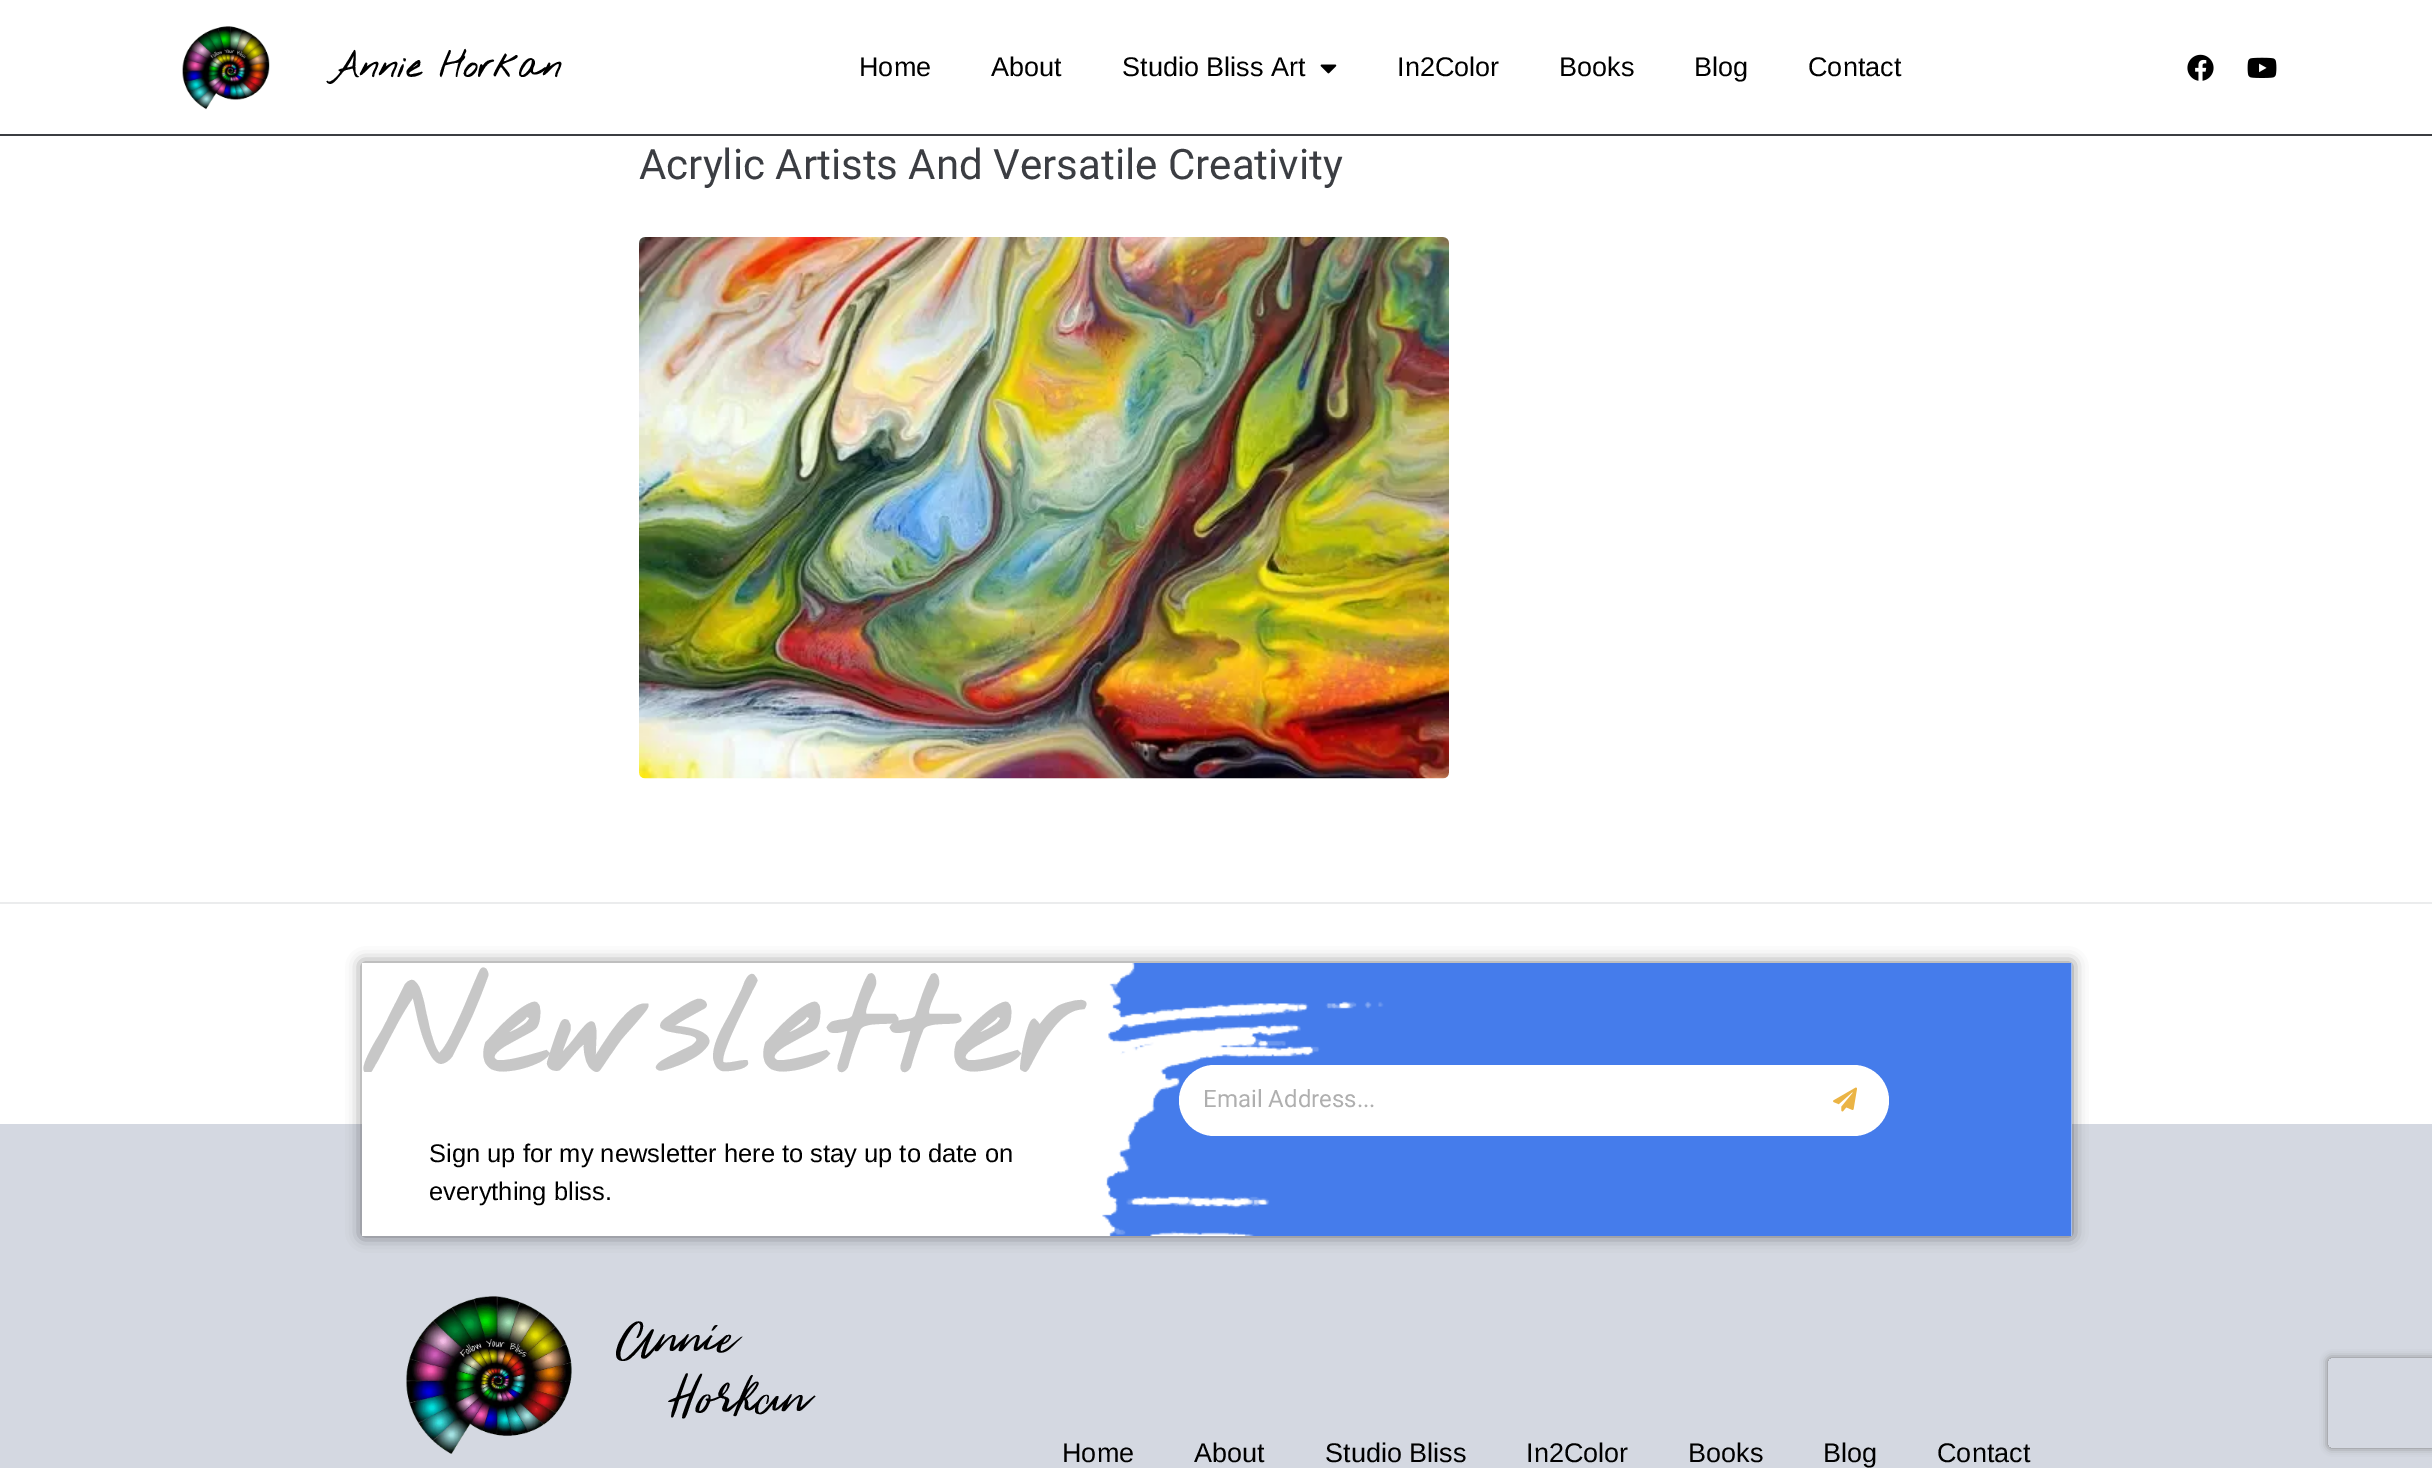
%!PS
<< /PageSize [2432 1468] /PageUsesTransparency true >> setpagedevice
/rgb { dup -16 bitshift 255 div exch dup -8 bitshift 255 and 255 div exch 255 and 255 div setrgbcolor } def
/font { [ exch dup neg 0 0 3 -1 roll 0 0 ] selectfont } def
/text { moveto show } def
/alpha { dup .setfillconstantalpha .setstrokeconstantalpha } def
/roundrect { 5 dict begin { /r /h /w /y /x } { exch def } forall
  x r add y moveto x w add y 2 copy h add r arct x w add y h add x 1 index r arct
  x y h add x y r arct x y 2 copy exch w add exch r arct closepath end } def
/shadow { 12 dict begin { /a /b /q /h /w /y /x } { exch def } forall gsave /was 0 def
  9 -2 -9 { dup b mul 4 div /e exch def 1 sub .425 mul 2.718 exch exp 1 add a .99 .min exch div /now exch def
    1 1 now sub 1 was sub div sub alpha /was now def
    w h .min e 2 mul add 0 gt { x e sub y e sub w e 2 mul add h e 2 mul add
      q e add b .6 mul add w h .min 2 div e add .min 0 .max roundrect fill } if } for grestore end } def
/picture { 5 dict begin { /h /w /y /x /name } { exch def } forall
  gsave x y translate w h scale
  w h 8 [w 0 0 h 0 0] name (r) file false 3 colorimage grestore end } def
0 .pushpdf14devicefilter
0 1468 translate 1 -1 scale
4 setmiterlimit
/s1 { /NothingYouCouldDo-Bold 34.5 font 16#000000 rgb } def
/s2 { /LiberationSans-Regular 27 font 16#000000 rgb } def
/s3 { /Roboto-Regular 42 font 16#3B3D42 rgb } def
/s4 { /LiberationSans-Regular 25.5 font 16#000000 rgb } def
/s5 { /Roboto-Regular 24 font 16#AFAFAF rgb } def
/s6 { /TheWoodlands-Regular 69 font 16#000000 rgb } def
16#FFFFFF rgb
0 0 2432 1468 rectfill
16#3B3D42 rgb
0 134 2432 2 rectfill
(pic1.raw) 182 26 88 84 picture
s1
(Annie Horkan) 330 77 text
s2
(Home) 859 76 text
(About) 991 76 text
(Studio Bliss Art) 1122 76 text
(pic2.raw) 1320 64 17 10 picture
(In2Color) 1397 76 text
(Books) 1559 76 text
(Blog) 1694 76 text
(Contact) 1808 76 text
(pic3.raw) 2187 54 27 27 picture
(pic4.raw) 2247 57 30 21 picture
s3
(Acrylic Artists And Versatile Creativity) 639 179 text
(pic5.raw) 639 237 810 542 picture
16#EBECED rgb
0 902 2432 2 rectfill
16#D4D8E1 rgb
0 1124 2432 344 rectfill
16#FFFFFF rgb
362 1124 1710 112 rectfill
(pic6.raw) 1102 963 970 273 picture
gsave
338 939 moveto 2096 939 lineto 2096 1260 lineto 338 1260 lineto closepath 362 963 moveto 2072 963 lineto 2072 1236 lineto 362 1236 lineto closepath eoclip newpath
16#000000 rgb
362 963 1710 273 0 7.5 0.5 shadow
grestore
/NothingYouCouldDo-Bold 142.5 font
16#C7C7C7 rgb
362 1072 moveto 3.6 0 (Newsletter) ashow
s4
(Sign up for my newsletter here to stay up to date on) 429 1162 text
(everything bliss.) 429 1200 text
16#FFFFFF rgb
1214.5 1065 moveto 1803 1065 lineto 1803 1136 lineto 1214.5 1136 lineto 1195 1136 1179 1120 1179 1100.5 curveto 1179 1081 1195 1065 1214.5 1065 curveto closepath fill
s5
(Email Address...) 1203 1107 text
16#FFFFFF rgb
1803 1065 moveto 1853.5 1065 lineto 1873 1065 1889 1081 1889 1100.5 curveto 1889 1120 1873 1136 1853.5 1136 curveto 1803 1136 lineto closepath fill
(pic7.raw) 1833 1087 24 25 picture
gsave
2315 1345 moveto 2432 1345 lineto 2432 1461 lineto 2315 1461 lineto closepath 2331 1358 moveto 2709 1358 lineto 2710.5 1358 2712 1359.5 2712 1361 curveto 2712 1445 lineto 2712 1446.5 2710.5 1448 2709 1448 curveto 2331 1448 lineto 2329.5 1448 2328 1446.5 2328 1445 curveto 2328 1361 lineto 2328 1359.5 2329.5 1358 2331 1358 curveto closepath eoclip newpath
16#808080 rgb
2328 1358 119 90 3 4 1 shadow
grestore
(pic8.raw) 406 1296 166 158 picture
s6
(Annie) 616 1350 text
(Horkan) 668 1410 text
s2
(Home) 1062 1462 text
(About) 1194 1462 text
(Studio Bliss) 1325 1462 text
(In2Color) 1526 1462 text
(Books) 1688 1462 text
(Blog) 1823 1462 text
(Contact) 1937 1462 text
.poppdf14devicefilter showpage
